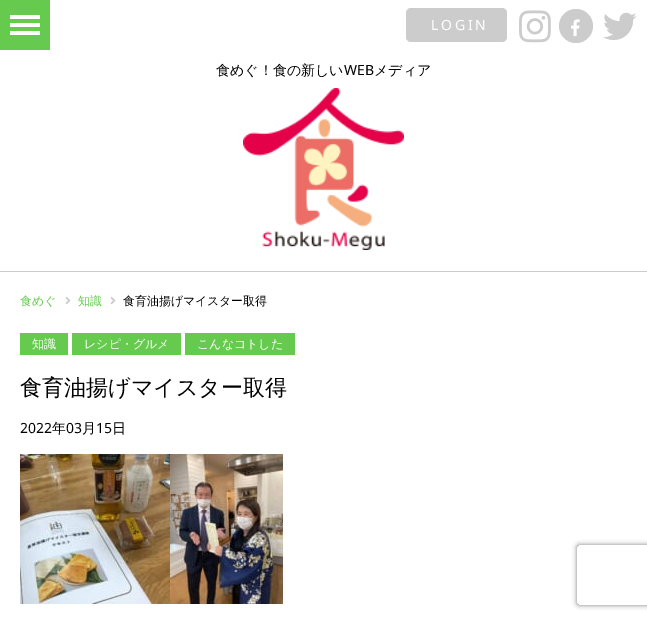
%!PS
<< /PageSize [647 619] /PageUsesTransparency true >> setpagedevice
/rgb { dup -16 bitshift 255 div exch dup -8 bitshift 255 and 255 div exch 255 and 255 div setrgbcolor } def
/font { [ exch dup neg 0 0 3 -1 roll 0 0 ] selectfont } def
/text { moveto show } def
/alpha { dup .setfillconstantalpha .setstrokeconstantalpha } def
/circle { newpath 0 360 arc closepath } def
/roundrect { 5 dict begin { /r /h /w /y /x } { exch def } forall
  x r add y moveto x w add y 2 copy h add r arct x w add y h add x 1 index r arct
  x y h add x y r arct x y 2 copy exch w add exch r arct closepath end } def
/shadow { 12 dict begin { /a /b /q /h /w /y /x } { exch def } forall gsave /was 0 def
  9 -2 -9 { dup b mul 4 div /e exch def 1 sub .425 mul 2.718 exch exp 1 add a .99 .min exch div /now exch def
    1 1 now sub 1 was sub div sub alpha /was now def
    w h .min e 2 mul add 0 gt { x e sub y e sub w e 2 mul add h e 2 mul add
      q e add b .6 mul add w h .min 2 div e add .min 0 .max roundrect fill } if } for grestore end } def
/picture { 5 dict begin { /h /w /y /x /name } { exch def } forall
  gsave x y translate w h scale
  w h 8 [w 0 0 h 0 0] name (r) file false 3 colorimage grestore end } def
0 .pushpdf14devicefilter
0 619 translate 1 -1 scale
4 setmiterlimit
/s1 { /WenQuanYiZenHei-Medium 14 font 16#000000 rgb } def
/s2 { /NotoSans-Regular 14 font 16#000000 rgb } def
/s3 { /WenQuanYiZenHei-Medium 11.9 font 16#66CA4E rgb } def
/s4 { /WenQuanYiZenHei-Medium 11.9 font 16#000000 rgb } def
/s5 { /WenQuanYiZenHei-Medium 12 font 16#FFFFFF rgb } def
/s6 { /WenQuanYiZenHei-Medium 22 font 16#000000 rgb } def
16#FFFFFF rgb
0 0 647 619 rectfill
16#CCCCCC rgb
0 271 647 1 rectfill
16#66CA4E rgb
0 0 50 50 rectfill
16#FFFFFF rgb
10 15 30 4 rectfill
10 23 30 4 rectfill
10 31 30 4 rectfill
16#CCCCCC rgb
406 8 101 34 5 roundrect fill
/NotoSans-Regular 14 font
16#FFFFFF rgb
431 30 moveto 2.75 0 (LOGIN) ashow
(pic1.raw) 519 10 32 33 picture
16#CCCCCC rgb
576 26 17 circle fill
(pic2.raw) 571 19 9 18 picture
(pic3.raw) 603 12 34 28 picture
s1
(食めぐ！食の新しい) 216 75 text
s2
(WEB) 344 75 text
s1
(メディア) 374 75 text
(pic4.raw) 243 88 161 162 picture
s3
(食めぐ) 20 305 text
(pic5.raw) 65 297 6 8 picture
(知識) 78 305 text
(pic5.raw) 110 297 6 8 picture
s4
(食育油揚げマイスター取得) 123 305 text
16#66CA4E rgb
20 333 48 22 rectfill
s5
(知識) 32 348 text
16#66CA4E rgb
72 333 109 22 rectfill
s5
(レシピ・グルメ) 84 348 text
16#66CA4E rgb
185 333 110 22 rectfill
s5
(こんなコトした) 197 348 text
s6
(食育油揚げマイスター取得) 20 395 text
s2
(2022) 20 433 text
s1
(年) 52 433 text
s2
(03) 66 433 text
s1
(月) 82 433 text
s2
(15) 96 433 text
s1
(日) 112 433 text
(pic6.raw) 20 454 150 150 picture
(pic7.raw) 170 454 113 150 picture
gsave
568 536 moveto 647 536 lineto 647 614 lineto 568 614 lineto closepath 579 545 moveto 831 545 lineto 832 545 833 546 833 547 curveto 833 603 lineto 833 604 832 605 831 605 curveto 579 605 lineto 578 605 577 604 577 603 curveto 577 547 lineto 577 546 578 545 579 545 curveto closepath eoclip newpath
16#808080 rgb
577 545 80 60 2 2.5 1 shadow
grestore
.poppdf14devicefilter showpage
